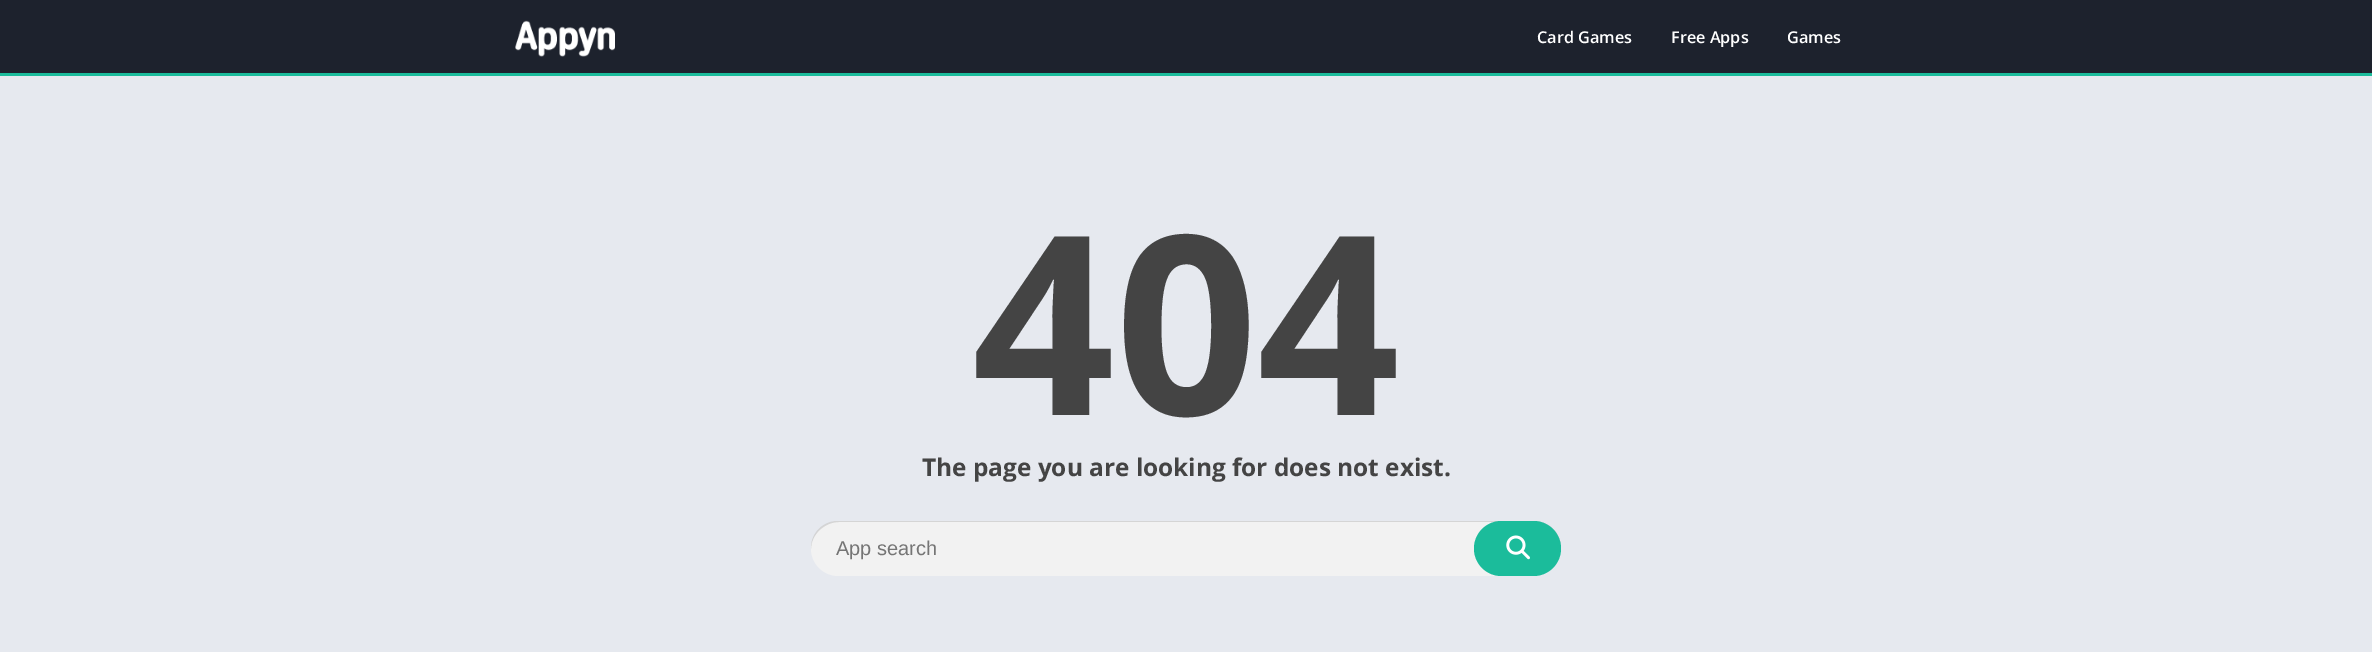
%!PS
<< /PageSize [2372 652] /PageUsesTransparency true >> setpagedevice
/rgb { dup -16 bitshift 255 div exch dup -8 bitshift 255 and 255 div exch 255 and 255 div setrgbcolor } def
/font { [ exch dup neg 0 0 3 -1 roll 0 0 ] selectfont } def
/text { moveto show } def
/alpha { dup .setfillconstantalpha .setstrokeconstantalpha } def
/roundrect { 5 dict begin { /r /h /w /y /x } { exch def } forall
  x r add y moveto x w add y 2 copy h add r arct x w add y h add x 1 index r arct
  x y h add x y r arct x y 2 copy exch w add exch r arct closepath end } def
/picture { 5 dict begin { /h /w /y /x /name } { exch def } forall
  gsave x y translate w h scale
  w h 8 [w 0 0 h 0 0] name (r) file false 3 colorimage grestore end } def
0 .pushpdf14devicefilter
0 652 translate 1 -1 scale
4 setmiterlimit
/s1 { /OpenSans-SemiBold 16.25 font 16#FFFFFF rgb } def
/s2 { /OpenSans-Bold 250 font 16#444444 rgb } def
/s3 { /OpenSans-Bold 24.4 font 16#444444 rgb } def
/s4 { /LiberationSans-Regular 20 font 16#757575 rgb } def
16#E6E9EF rgb
0 0 2372 652 rectfill
16#1D222D rgb
0 0 2372 73 rectfill
16#1BBC9B rgb
0 73 2372 3 rectfill
(pic1.raw) 515 20 100 37 picture
s1
(Card Games) 1537 43 text
(Free Apps) 1671 43 text
(Games) 1787 43 text
s2
(404) 972 415 text
s3
(The page you are looking for does not exist.) 922 476 text
16#F2F2F2 rgb
811 521 750 55 27.5 roundrect fill
0.12 alpha
16#000000 rgb
839 522 moveto 1534 522 lineto 1549 522 1561 535 1561 549 curveto 1561 548 lineto 1561 533 1549 521 1534 521 curveto 838 521 lineto 823 521 811 533 811 548 curveto 811 549 lineto 811 535 824 522 839 522 curveto closepath fill
1 alpha
s4
(App search) 836 555 text
16#1BBC9B rgb
1474 521 87 55 27.5 roundrect fill
(pic2.raw) 1506 535 24 25 picture
.poppdf14devicefilter showpage
